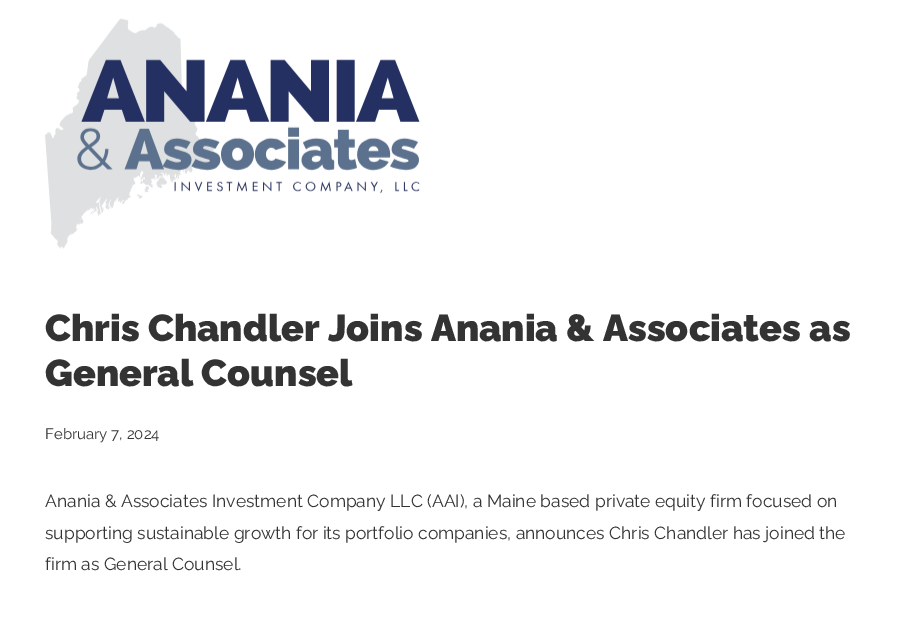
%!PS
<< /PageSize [900 626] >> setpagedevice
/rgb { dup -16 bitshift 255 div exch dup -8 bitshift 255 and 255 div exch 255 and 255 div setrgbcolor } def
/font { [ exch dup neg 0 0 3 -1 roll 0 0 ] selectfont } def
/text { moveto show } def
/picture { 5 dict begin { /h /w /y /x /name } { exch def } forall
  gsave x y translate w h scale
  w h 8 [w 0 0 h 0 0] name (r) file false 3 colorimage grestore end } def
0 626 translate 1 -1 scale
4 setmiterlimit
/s1 { /Raleway-Black 37.5 font 16#333333 rgb } def
/s2 { /Raleway-Regular 15 font 16#333333 rgb } def
/s3 { /Raleway-Regular 17.5 font 16#333333 rgb } def
16#FFFFFF rgb
0 0 900 626 rectfill
(pic1.raw) 45 18 375 231 picture
s1
(Chris Chandler Joins Anania & Associates as) 45 341 text
(General Counsel) 45 386 text
s2
(February 7, 2024) 45 439 text
s3
(Anania & Associates Investment Company LLC \(AAI\), a Maine based private equity firm focused on) 45 507 text
(supporting sustainable growth for its portfolio companies, announces Chris Chandler has joined the) 45 539 text
(firm as General Counsel.) 45 570 text
showpage
